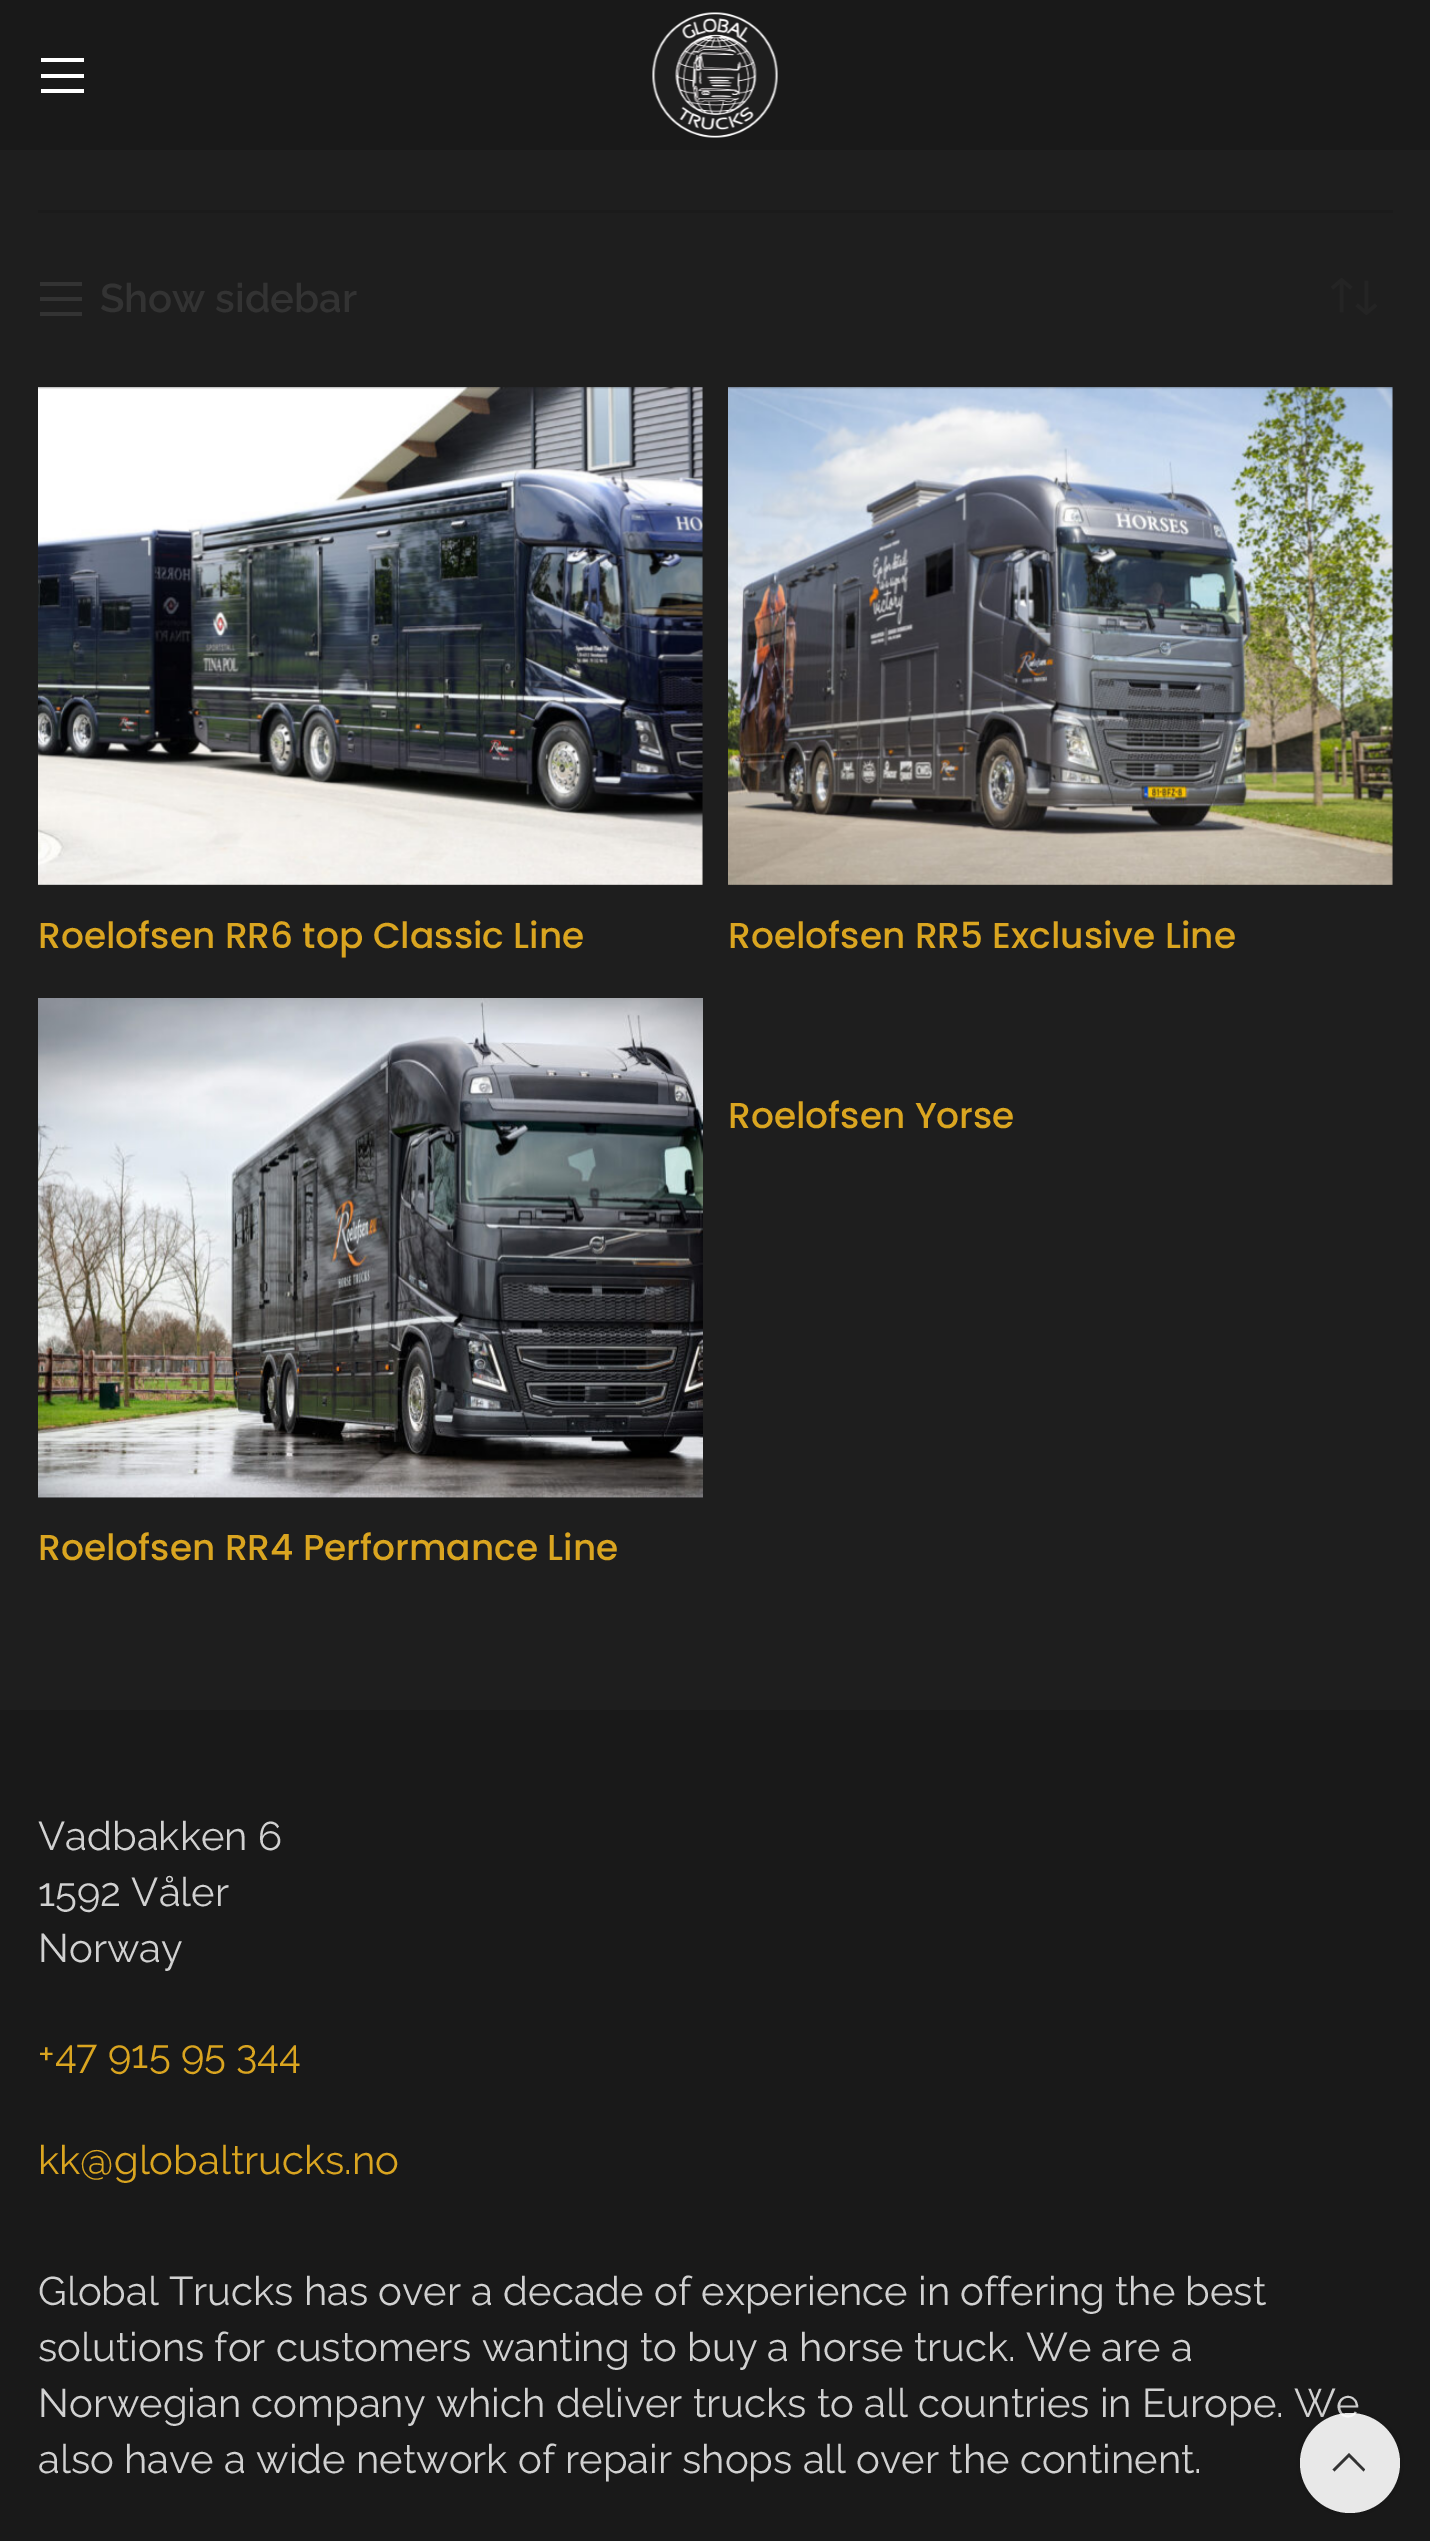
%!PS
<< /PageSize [1430 2541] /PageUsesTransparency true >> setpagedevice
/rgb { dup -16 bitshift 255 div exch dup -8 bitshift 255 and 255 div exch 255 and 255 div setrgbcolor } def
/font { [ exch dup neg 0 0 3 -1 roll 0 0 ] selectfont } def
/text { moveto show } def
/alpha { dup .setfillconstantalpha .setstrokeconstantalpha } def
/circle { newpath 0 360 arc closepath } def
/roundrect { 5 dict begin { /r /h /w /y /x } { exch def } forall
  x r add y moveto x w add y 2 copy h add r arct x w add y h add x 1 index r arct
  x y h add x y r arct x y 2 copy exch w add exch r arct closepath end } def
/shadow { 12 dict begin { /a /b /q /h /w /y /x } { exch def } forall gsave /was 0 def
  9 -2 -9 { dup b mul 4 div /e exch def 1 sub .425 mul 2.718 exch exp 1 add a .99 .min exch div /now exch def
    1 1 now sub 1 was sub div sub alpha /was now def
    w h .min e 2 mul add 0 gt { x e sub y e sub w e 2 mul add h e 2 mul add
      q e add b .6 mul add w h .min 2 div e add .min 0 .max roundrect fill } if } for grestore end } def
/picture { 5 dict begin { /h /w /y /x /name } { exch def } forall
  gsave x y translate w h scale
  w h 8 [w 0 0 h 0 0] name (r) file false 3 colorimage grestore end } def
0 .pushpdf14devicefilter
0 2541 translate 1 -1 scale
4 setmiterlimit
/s1 { /Raleway-SemiBold 40 font 16#333333 rgb } def
/s2 { /Poppins-Medium 36 font 16#DAA520 rgb } def
/s3 { /Raleway-Regular 40 font 16#D1D1D1 rgb } def
/s4 { /Raleway-Regular 40 font 16#DAA520 rgb } def
16#1E1E1E rgb
0 0 1430 2541 rectfill
16#191919 rgb
0 0 1430 150 rectfill
16#FFFFFF rgb
41 62 moveto 84 62 lineto 84 58 lineto 41 58 lineto closepath 41 78 moveto 84 78 lineto 84 74 lineto 41 74 lineto closepath 41 93 moveto 84 93 lineto 84 89 lineto 41 89 lineto closepath fill
(pic1.raw) 652 12 126 126 picture
16#1B1B1B rgb
38 210 1355 3 rectfill
16#333333 rgb
40 286 moveto 82 286 lineto 82 282 lineto 40 282 lineto closepath 40 301 moveto 82 301 lineto 82 297 lineto 40 297 lineto closepath 40 316 moveto 82 316 lineto 82 312 lineto 40 312 lineto closepath fill
s1
(Show sidebar) 100 312 text
(pic2.raw) 1331 278 46 37 picture
(pic3.raw) 38 387 665 498 picture
s2
(Roelofsen RR6 top Classic Line) 38 948 text
(pic4.raw) 728 387 665 498 picture
(Roelofsen RR5 Exclusive Line) 728 948 text
(Roelofsen Yorse) 728 1128 text
(pic5.raw) 38 998 665 500 picture
(Roelofsen RR4 Performance Line) 38 1560 text
16#191919 rgb
0 1710 1430 831 rectfill
s3
(Vadbakken 6) 38 1850 text
(1592 Våler) 38 1906 text
(Norway) 38 1962 text
s4
(+47 915 95 344) 38 2068 text
(kk@globaltrucks.no) 38 2174 text
s3
(Global Trucks has over a decade of experience in offering the best) 38 2305 text
(solutions for customers wanting to buy a horse truck. We are a) 38 2361 text
(Norwegian company which deliver trucks to all countries in Europe. We) 38 2417 text
(also have a wide network of repair shops all over the continent.) 38 2473 text
gsave
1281 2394 moveto 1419 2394 lineto 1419 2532 lineto 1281 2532 lineto closepath 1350 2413 moveto 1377.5 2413 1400 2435.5 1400 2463 curveto 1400 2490.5 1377.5 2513 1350 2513 curveto 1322.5 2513 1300 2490.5 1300 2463 curveto 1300 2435.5 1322.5 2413 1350 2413 curveto closepath eoclip newpath
16#000000 rgb
1300 2413 100 100 50 6 0.17 shadow
grestore
0.9 alpha
16#FFFFFF rgb
1350 2463 50 circle fill
1 alpha
16#333333 rgb
1363.5 2471.5 moveto 1365 2469.5 lineto 1349 2453 lineto 1332.5 2469.5 lineto 1334.5 2471.5 lineto 1349 2457 lineto closepath fill
.poppdf14devicefilter showpage
